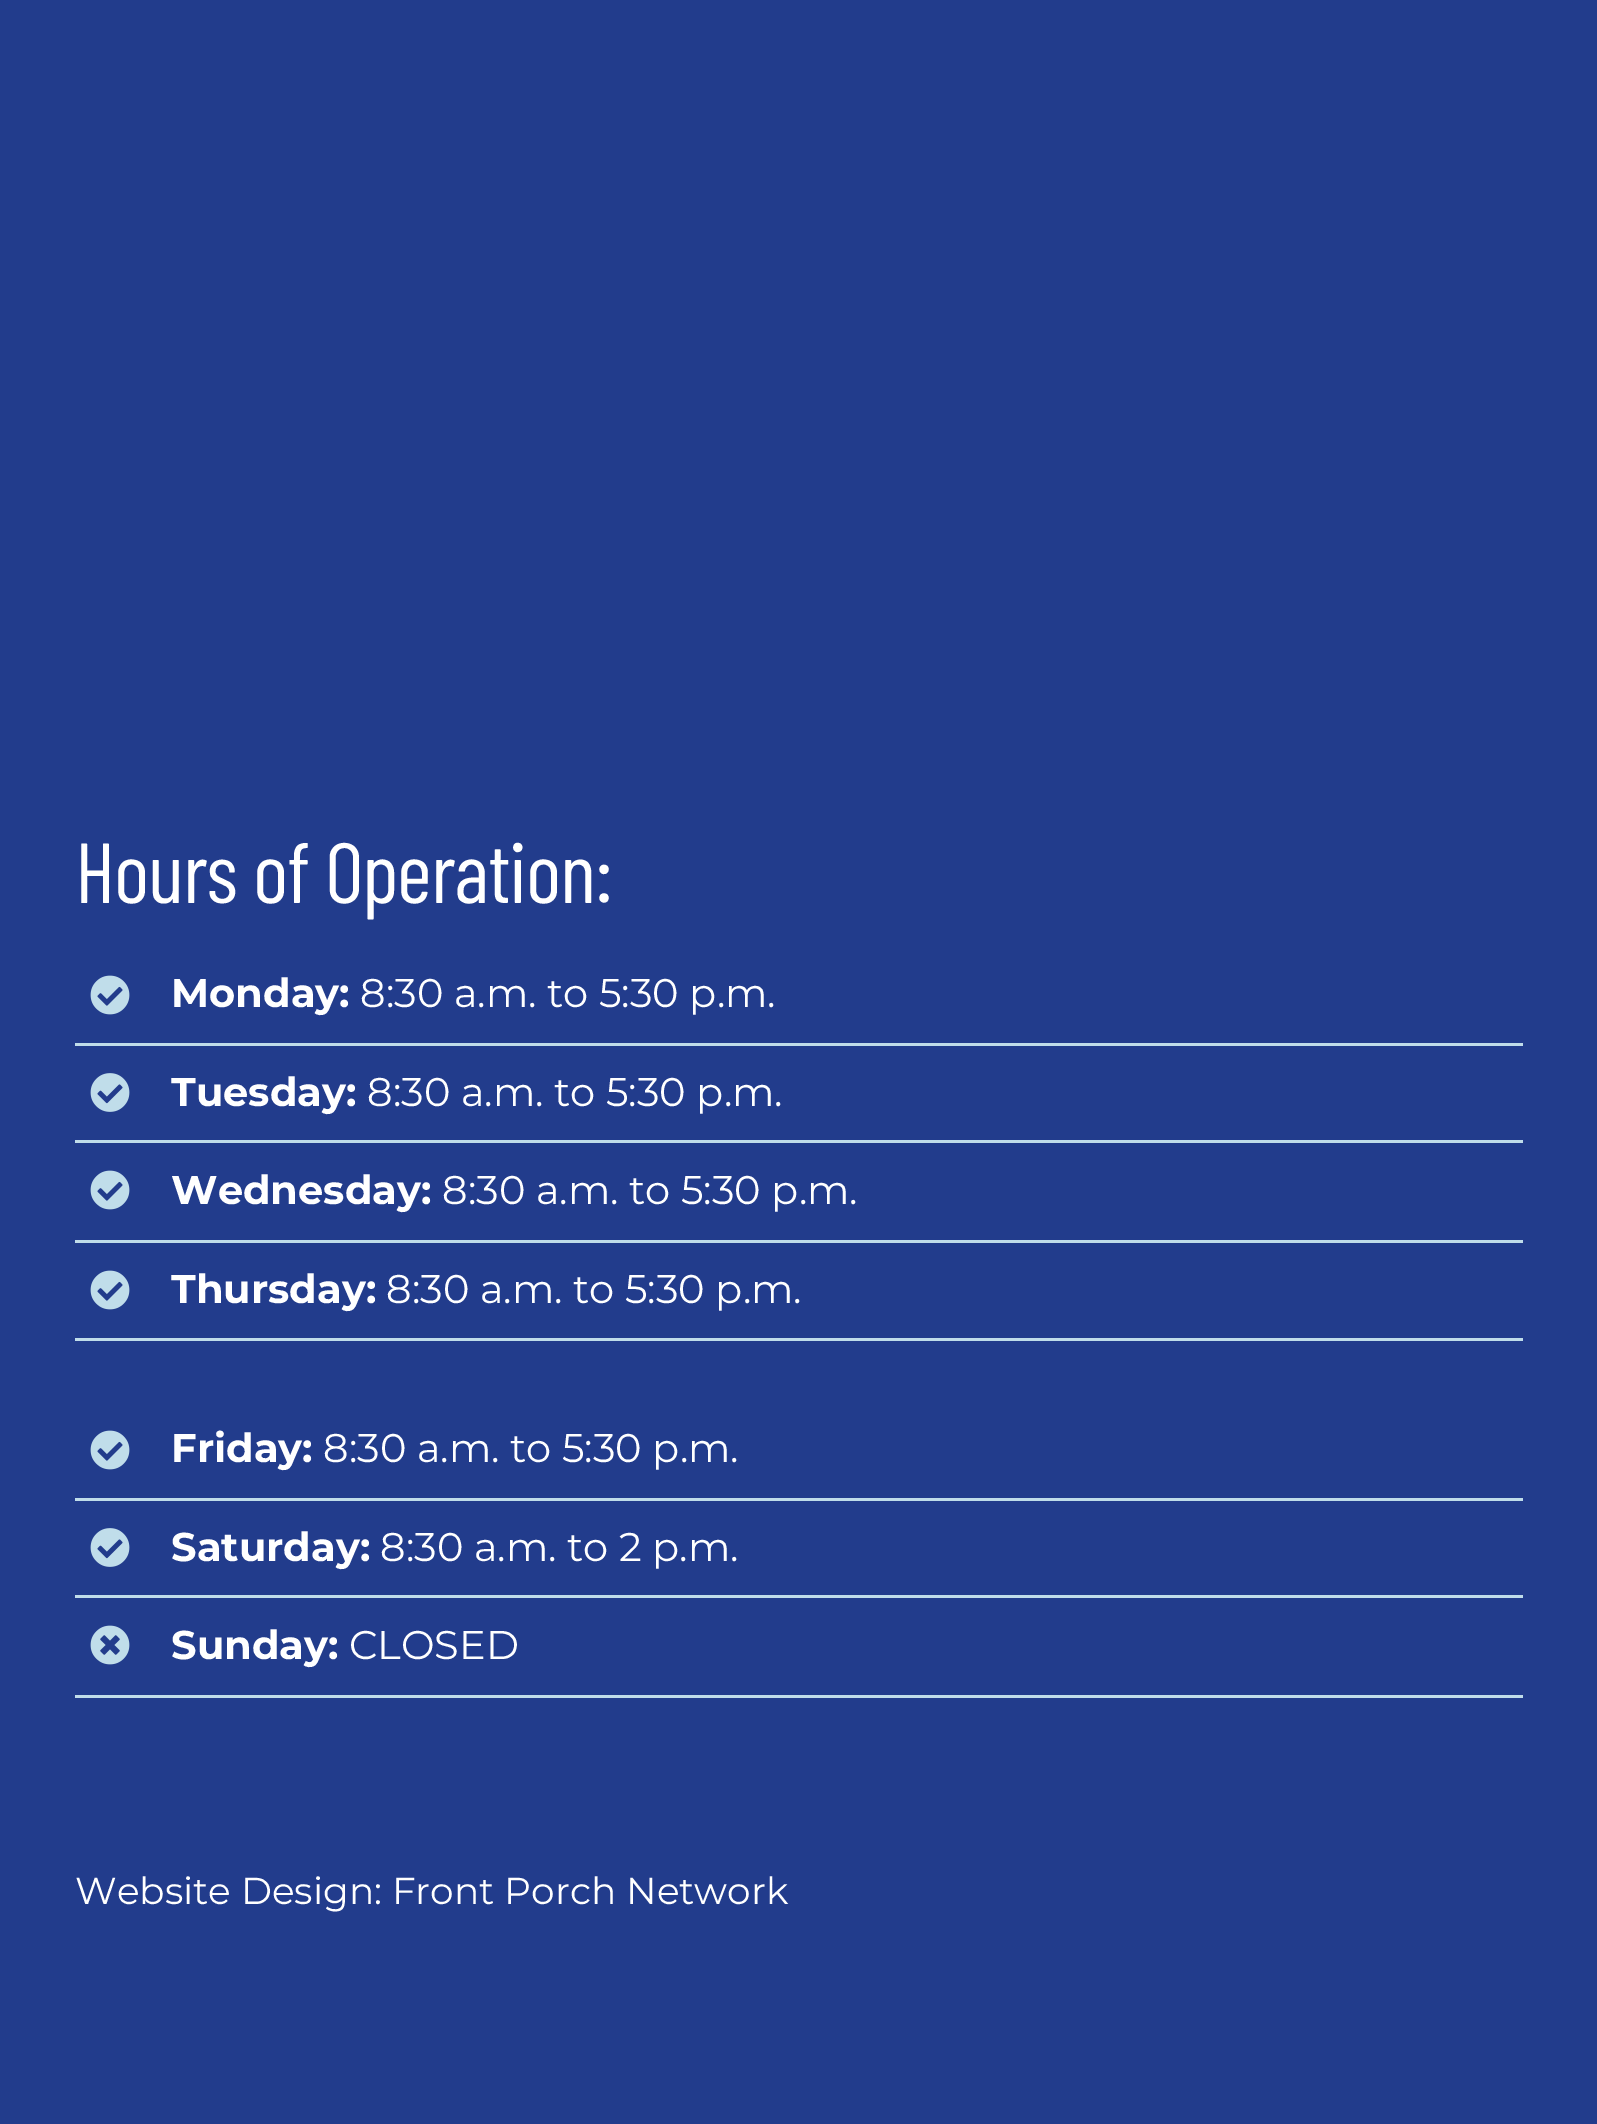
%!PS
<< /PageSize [1597 2124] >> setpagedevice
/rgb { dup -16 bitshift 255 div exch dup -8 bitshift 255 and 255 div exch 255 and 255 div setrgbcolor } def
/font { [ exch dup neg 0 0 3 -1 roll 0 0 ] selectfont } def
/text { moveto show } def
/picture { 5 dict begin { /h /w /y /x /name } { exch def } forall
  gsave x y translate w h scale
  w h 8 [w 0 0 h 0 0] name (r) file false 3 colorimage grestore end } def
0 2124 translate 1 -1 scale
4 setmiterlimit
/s1 { /Montserrat-Bold 40 font 16#FFFFFF rgb } def
/s2 { /Montserrat-Regular 40 font 16#FFFFFF rgb } def
/s3 { /Montserrat-Regular 37.5 font 16#FFFFFF rgb } def
16#223C8C rgb
0 0 1597 2124 rectfill
/BarlowCondensed-Regular 85 font
16#FFFFFF rgb
75 903 moveto -1.25 0 (Hours of Operation:) ashow
16#C0DDEA rgb
75 1043 1448 3 rectfill
(pic1.raw) 90 975 40 40 picture
s1
(Monday:) 171 1007 text
s2
(8:30 a.m. to 5:30 p.m.) 360 1007 text
16#C0DDEA rgb
75 1140 1448 3 rectfill
(pic2.raw) 90 1073 40 39 picture
s1
(Tuesday:) 171 1106 text
s2
(8:30 a.m. to 5:30 p.m.) 367 1106 text
16#C0DDEA rgb
75 1240 1448 3 rectfill
(pic1.raw) 90 1170 40 40 picture
s1
(Wednesday:) 171 1204 text
s2
(8:30 a.m. to 5:30 p.m.) 442 1204 text
16#C0DDEA rgb
75 1338 1448 3 rectfill
(pic1.raw) 90 1270 40 40 picture
s1
(Thursday:) 171 1303 text
s2
(8:30 a.m. to 5:30 p.m.) 386 1303 text
16#C0DDEA rgb
75 1498 1448 3 rectfill
(pic1.raw) 90 1430 40 40 picture
s1
(Friday:) 171 1462 text
s2
(8:30 a.m. to 5:30 p.m.) 323 1462 text
16#C0DDEA rgb
75 1595 1448 3 rectfill
(pic2.raw) 90 1528 40 39 picture
s1
(Saturday:) 171 1561 text
s2
(8:30 a.m. to 2 p.m.) 380 1561 text
16#C0DDEA rgb
75 1695 1448 3 rectfill
(pic3.raw) 90 1625 40 40 picture
s1
(Sunday:) 171 1659 text
s2
(CLOSED) 349 1659 text
s3
(Website Design: Front Porch Network) 75 1904 text
showpage
